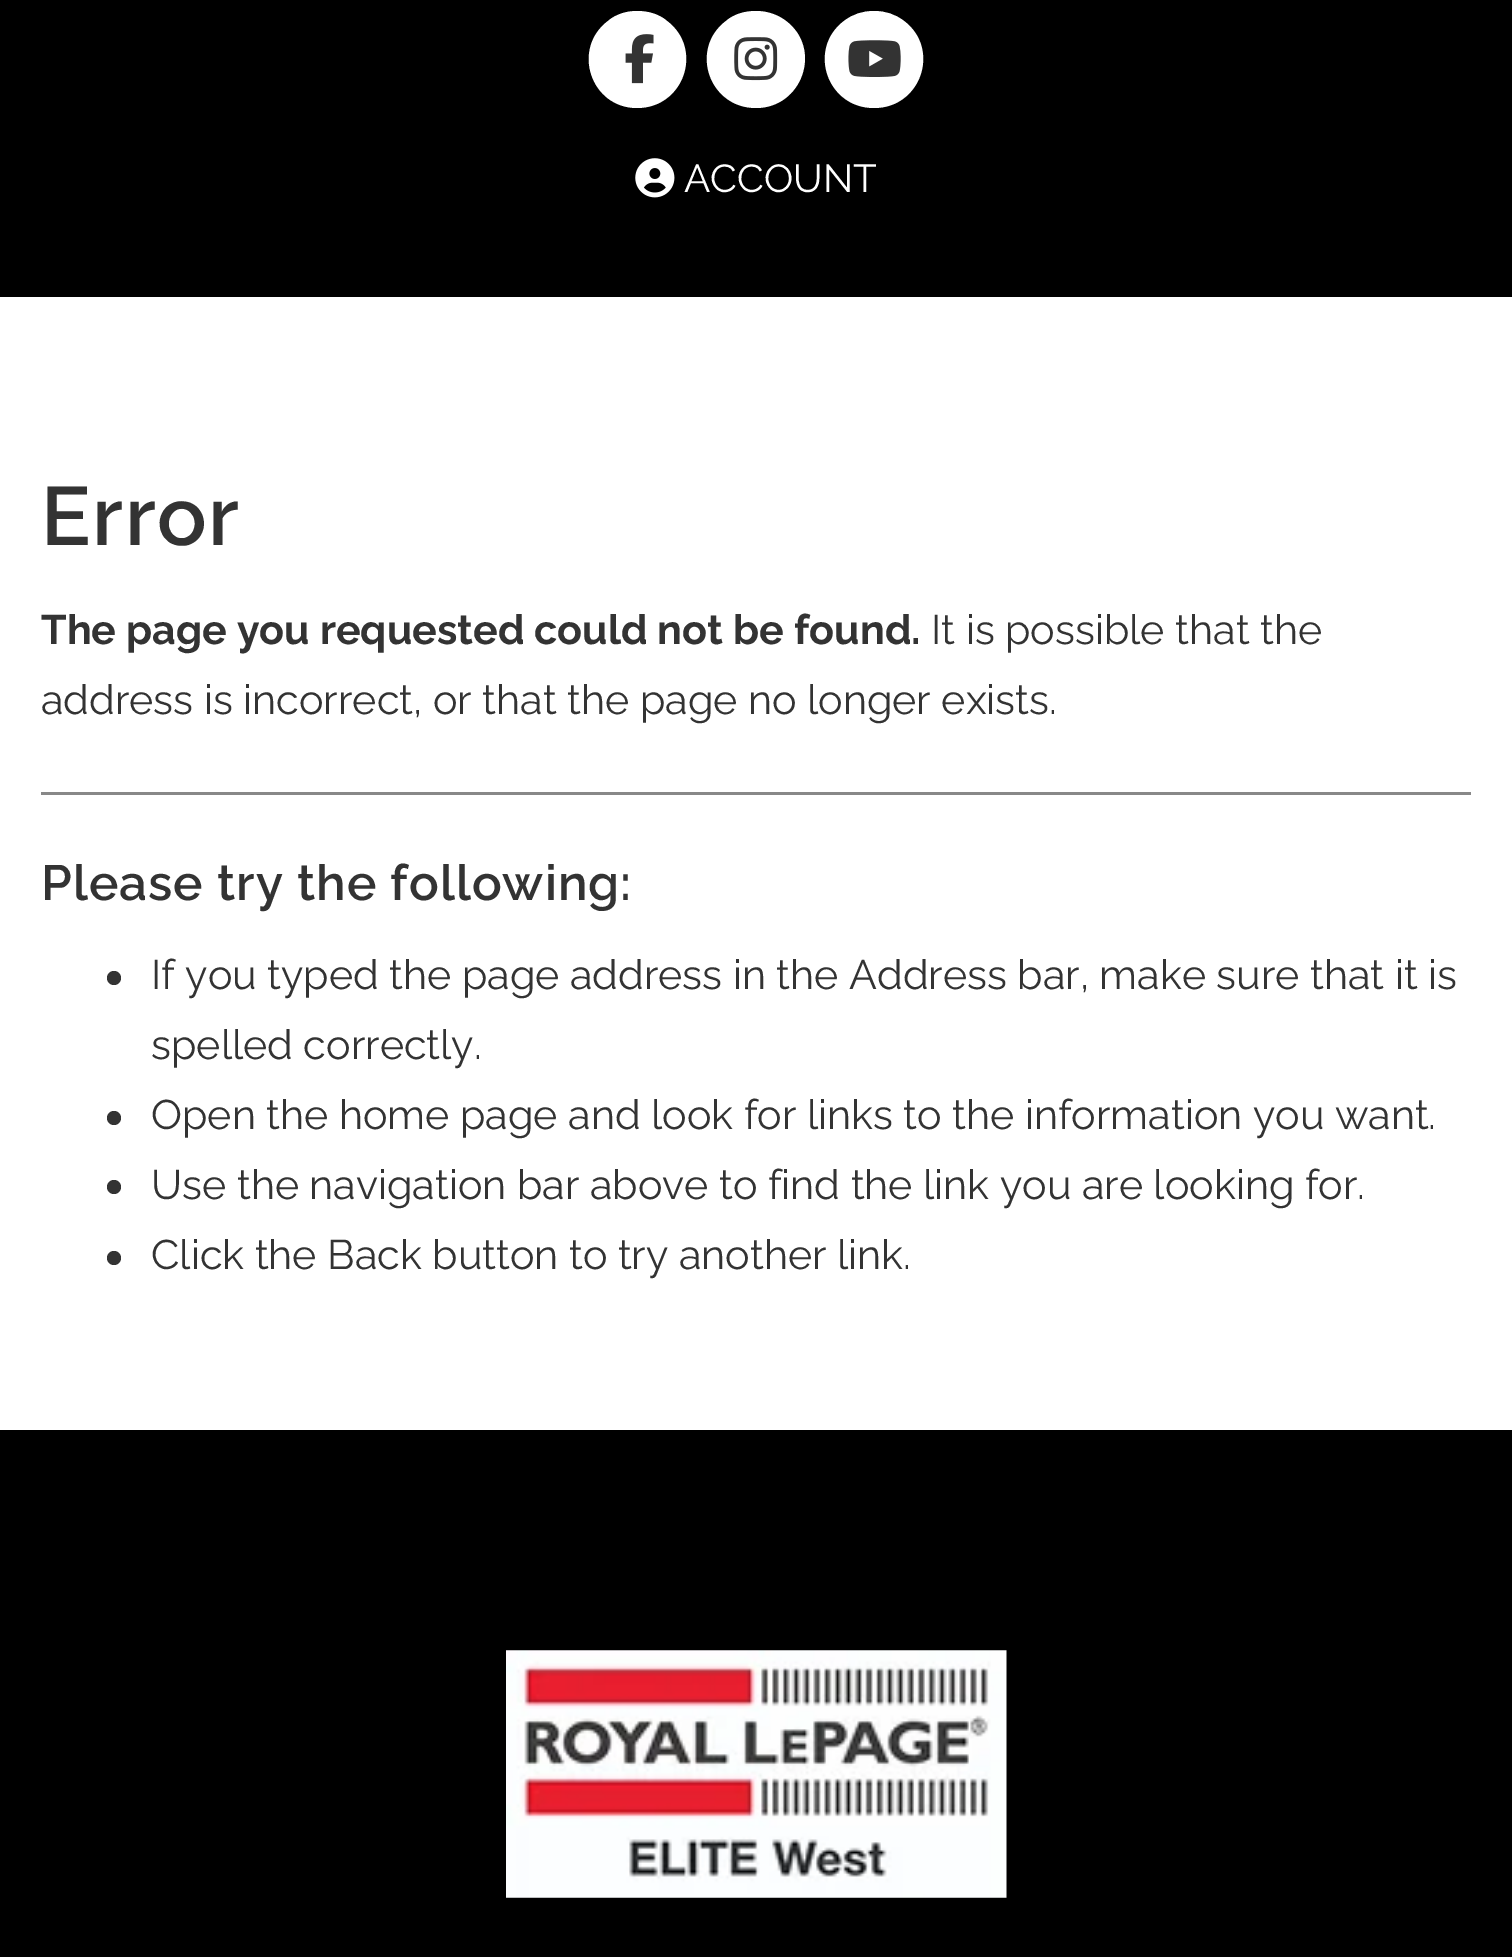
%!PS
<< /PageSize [1512 1957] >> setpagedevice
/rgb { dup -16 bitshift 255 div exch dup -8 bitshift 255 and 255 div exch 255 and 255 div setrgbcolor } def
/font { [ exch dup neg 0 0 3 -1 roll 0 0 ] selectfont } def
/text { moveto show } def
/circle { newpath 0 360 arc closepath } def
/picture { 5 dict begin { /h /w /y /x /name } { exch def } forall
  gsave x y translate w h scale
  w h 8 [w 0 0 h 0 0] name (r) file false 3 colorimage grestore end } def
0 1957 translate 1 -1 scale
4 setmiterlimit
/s1 { /Raleway-Regular 39 font 16#FFFFFF rgb } def
/s2 { /Raleway-Bold 41.25 font 16#333333 rgb } def
/s3 { /Raleway-Regular 41.25 font 16#333333 rgb } def
16#FFFFFF rgb
0 0 1512 1957 rectfill
16#000000 rgb
0 0 1512 297 rectfill
16#FFFFFF rgb
637 108 moveto 684 108 704 49 667 21 curveto 659 14 648 11 637 11 curveto 627 11 616 14 608 21 curveto 571 49 591 108 637 108 curveto closepath fill
(pic1.raw) 625 34 29 50 picture
756 108 moveto 802 108 823 49 786 21 curveto 777 14 766 11 756 11 curveto 745 11 734 14 726 21 curveto 689 49 709 108 756 108 curveto closepath fill
(pic2.raw) 734 37 44 44 picture
874 108 moveto 921 108 941 49 904 21 curveto 895 14 885 11 874 11 curveto 863 11 853 14 844 21 curveto 807 49 827 108 874 108 curveto closepath fill
(pic3.raw) 848 40 53 37 picture
(pic4.raw) 635 158 40 40 picture
s1
(ACCOUNT) 684 192 text
/Raleway-SemiBold 82.5 font
16#333333 rgb
41 545 moveto 1.5 0 (Error) ashow
s2
(The page you requested could not be found.) 41 644 text
s3
(It is possible that the) 931 644 text
(address is incorrect, or that the page no longer exists.) 41 714 text
16#888888 rgb
41 792 1430 3 rectfill
/Raleway-SemiBold 49.5 font
16#333333 rgb
41 900 moveto 1 0 (Please try the following:) ashow
114 978 7 circle fill
s3
(If you typed the page address in the Address bar, make sure that it is) 151 989 text
(spelled correctly.) 151 1059 text
114 1118 7 circle fill
(Open the home page and look for links to the information you want.) 151 1129 text
114 1187 7 circle fill
(Use the navigation bar above to find the link you are looking for.) 151 1199 text
114 1258 7 circle fill
(Click the Back button to try another link.) 151 1269 text
16#000000 rgb
0 1430 1512 527 rectfill
(pic5.raw) 506 1650 501 248 picture
showpage
